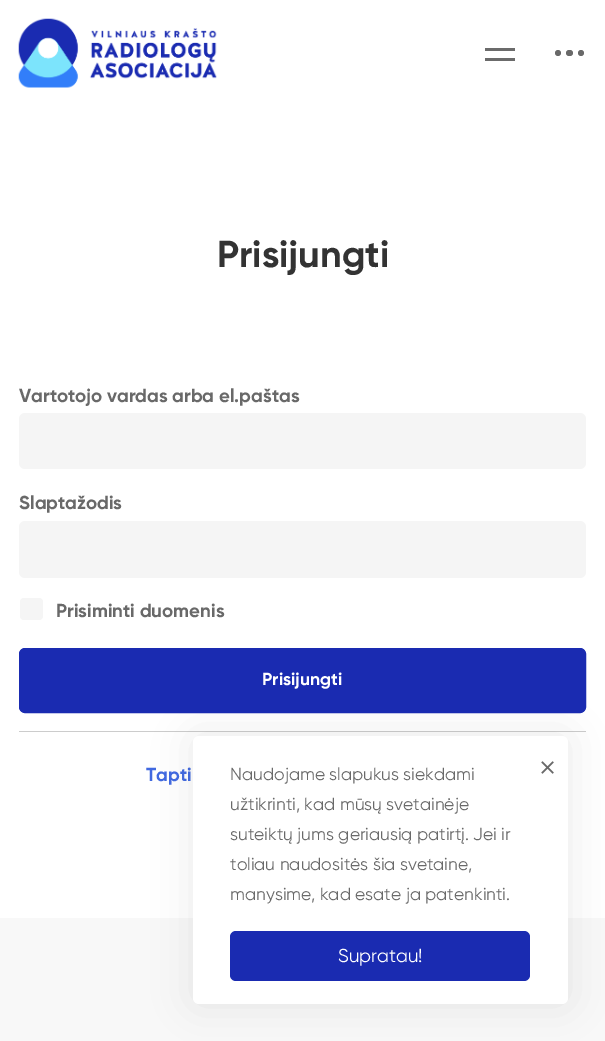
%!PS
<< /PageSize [605 1041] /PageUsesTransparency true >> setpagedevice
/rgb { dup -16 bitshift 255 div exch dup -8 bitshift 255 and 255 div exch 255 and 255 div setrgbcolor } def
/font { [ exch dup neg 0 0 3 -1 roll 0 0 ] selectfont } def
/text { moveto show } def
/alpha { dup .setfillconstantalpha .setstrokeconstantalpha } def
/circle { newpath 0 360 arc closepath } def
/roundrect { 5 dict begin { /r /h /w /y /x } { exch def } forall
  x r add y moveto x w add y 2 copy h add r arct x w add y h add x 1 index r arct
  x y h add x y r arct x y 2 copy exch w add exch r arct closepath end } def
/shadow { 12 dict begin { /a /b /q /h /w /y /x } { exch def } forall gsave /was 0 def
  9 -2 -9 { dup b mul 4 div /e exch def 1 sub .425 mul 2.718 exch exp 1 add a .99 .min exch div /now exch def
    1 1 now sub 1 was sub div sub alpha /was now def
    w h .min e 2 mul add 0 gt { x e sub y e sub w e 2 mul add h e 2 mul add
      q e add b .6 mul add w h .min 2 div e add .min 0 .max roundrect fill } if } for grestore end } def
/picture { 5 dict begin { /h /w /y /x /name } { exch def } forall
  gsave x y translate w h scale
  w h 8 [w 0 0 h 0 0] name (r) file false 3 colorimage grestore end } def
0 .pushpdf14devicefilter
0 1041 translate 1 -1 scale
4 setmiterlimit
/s1 { /Gilroy-Bold 37.5 font 16#333333 rgb } def
/s2 { /Gilroy-Bold 18.75 font 16#696969 rgb } def
/s3 { /Gilroy-Bold 17.5 font 16#FFFFFF rgb } def
/s4 { /Gilroy-Bold 18.75 font 16#4169E1 rgb } def
/s5 { /Gilroy-Regular 17.5 font 16#696969 rgb } def
/s6 { /Gilroy-Regular 18.75 font 16#FFFFFF rgb } def
16#FFFFFF rgb
0 0 605 1041 rectfill
(pic1.raw) 18 18 199 70 picture
16#6B6B6B rgb
485 48 30 3 rectfill
485 58 30 3 rectfill
16#696969 rgb
558 53 3 circle fill
566 50 7 6 3 roundrect fill
581 53 3 circle fill
s1
(Prisijungti) 217 267 text
s2
(Vartotojo vardas arba el.paštas) 19 402 text
16#F5F5F5 rgb
19 413 567 56 6 roundrect fill
s2
(Slaptažodis) 19 509 text
16#F5F5F5 rgb
19 521 567 57 6 roundrect fill
20 598 23 22 4 roundrect fill
s2
(Prisiminti duomenis) 56 617 text
16#1A2BB1 rgb
19.5 648.5 566 64 5.5 roundrect gsave fill grestore
stroke
s3
(Prisijungti) 262 685 text
16#CCCCCC rgb
19 731 567 1 rectfill
s4
(Tapti) 146 781 text
16#F8F8F8 rgb
0 918 605 123 rectfill
16#333333 rgb
193 736 375 268 6 19 0.1 shadow
16#FFFFFF rgb
193 736 375 268 6 roundrect fill
s5
(Naudojame slapukus siekdami) 230 780 text
(užtikrinti, kad mūsų svetainėje) 230 810 text
(suteiktų jums geriausią patirtį. Jei ir) 230 840 text
(toliau naudositės šia svetaine,) 230 870 text
(manysime, kad esate ja patenkinti.) 230 900 text
16#1A2BB1 rgb
230 931 300 50 6 roundrect fill
s6
(Supratau!) 338 962 text
(pic2.raw) 541 761 13 13 picture
.poppdf14devicefilter showpage
